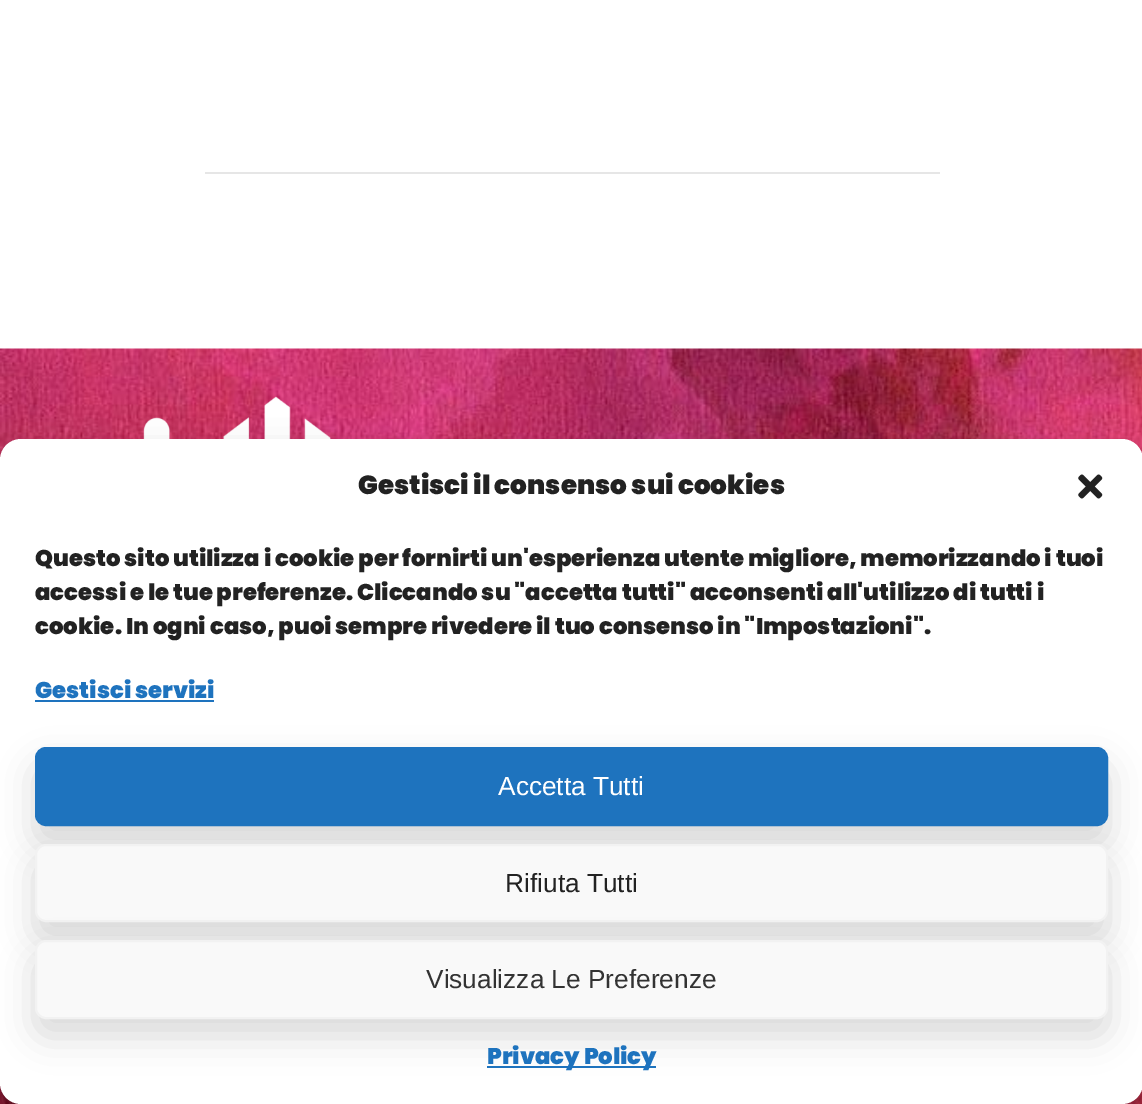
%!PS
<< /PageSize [1142 1104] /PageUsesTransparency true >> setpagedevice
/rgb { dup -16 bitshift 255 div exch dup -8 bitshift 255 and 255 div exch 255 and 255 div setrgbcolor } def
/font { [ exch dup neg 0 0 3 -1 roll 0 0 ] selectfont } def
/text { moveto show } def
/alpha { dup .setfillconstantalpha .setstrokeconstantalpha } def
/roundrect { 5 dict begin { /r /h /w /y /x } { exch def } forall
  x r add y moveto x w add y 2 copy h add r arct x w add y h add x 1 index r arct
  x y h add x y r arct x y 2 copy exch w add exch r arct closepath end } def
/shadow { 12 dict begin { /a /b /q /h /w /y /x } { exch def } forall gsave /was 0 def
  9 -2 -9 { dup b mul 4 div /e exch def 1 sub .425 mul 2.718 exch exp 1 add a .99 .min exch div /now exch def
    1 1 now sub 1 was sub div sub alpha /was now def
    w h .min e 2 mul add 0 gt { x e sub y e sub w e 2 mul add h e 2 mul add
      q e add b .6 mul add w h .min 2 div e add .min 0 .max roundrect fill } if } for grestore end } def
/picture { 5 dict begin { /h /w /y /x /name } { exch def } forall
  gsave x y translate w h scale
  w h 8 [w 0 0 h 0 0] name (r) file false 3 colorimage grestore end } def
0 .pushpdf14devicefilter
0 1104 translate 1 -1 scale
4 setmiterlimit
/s1 { /Poppins-Black 26.25 font 16#222222 rgb } def
/s2 { /Poppins-Black 22.75 font 16#222222 rgb } def
/s3 { /Poppins-Black 22.75 font 16#1E73BE rgb } def
/s4 { /LiberationSans-Regular 26.25 font 16#FFFFFF rgb } def
/s5 { /LiberationSans-Regular 26.25 font 16#222222 rgb } def
/s6 { /LiberationSans-Regular 26.25 font 16#333333 rgb } def
16#FFFFFF rgb
0 0 1142 1104 rectfill
16#E6E6E6 rgb
205 172 735 2 rectfill
(pic1.raw) 0 348 1142 756 picture
(pic2.raw) 143 396 188 43 picture
16#000000 rgb
0 450 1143 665 21 5 0.23 shadow
0 457 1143 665 21 17.5 0.19 shadow
16#FFFFFF rgb
0 439 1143 665 21 roundrect fill
s1
(Gestisci il consenso sui cookies) 358 494 text
(pic3.raw) 1078 474 25 25 picture
s2
(Questo sito utilizza i cookie per fornirti un'esperienza utente migliore, memorizzando i tuoi) 35 566 text
(accessi e le tue preferenze. Cliccando su "accetta tutti" acconsenti all'utilizzo di tutti i) 35 600 text
(cookie. In ogni caso, puoi sempre rivedere il tuo consenso in "Impostazioni".) 35 634 text
s3
(Gestisci servizi) 35 698 text
35 700 179 2 rectfill
16#000000 rgb
35 765 1073 79 11 17.5 0.15 shadow
16#1E73BE rgb
36 748 1071 77 10 roundrect gsave fill grestore
2 setlinewidth
stroke
s4
(Accetta Tutti) 498 795 text
16#000000 rgb
35 861 1073 79 11 17.5 0.15 shadow
16#F9F9F9 rgb
36 845 1071 76 10 roundrect gsave fill grestore
16#F2F2F2 rgb
stroke
s5
(Rifiuta Tutti) 505 892 text
16#000000 rgb
35 957 1073 79 11 17.5 0.15 shadow
16#F9F9F9 rgb
36 941 1071 77 10 roundrect gsave fill grestore
16#F2F2F2 rgb
stroke
s6
(Visualizza Le Preferenze) 426 988 text
16#1E73BE rgb
487 1066 169 2 rectfill
s3
(Privacy Policy) 487 1064 text
.poppdf14devicefilter showpage
